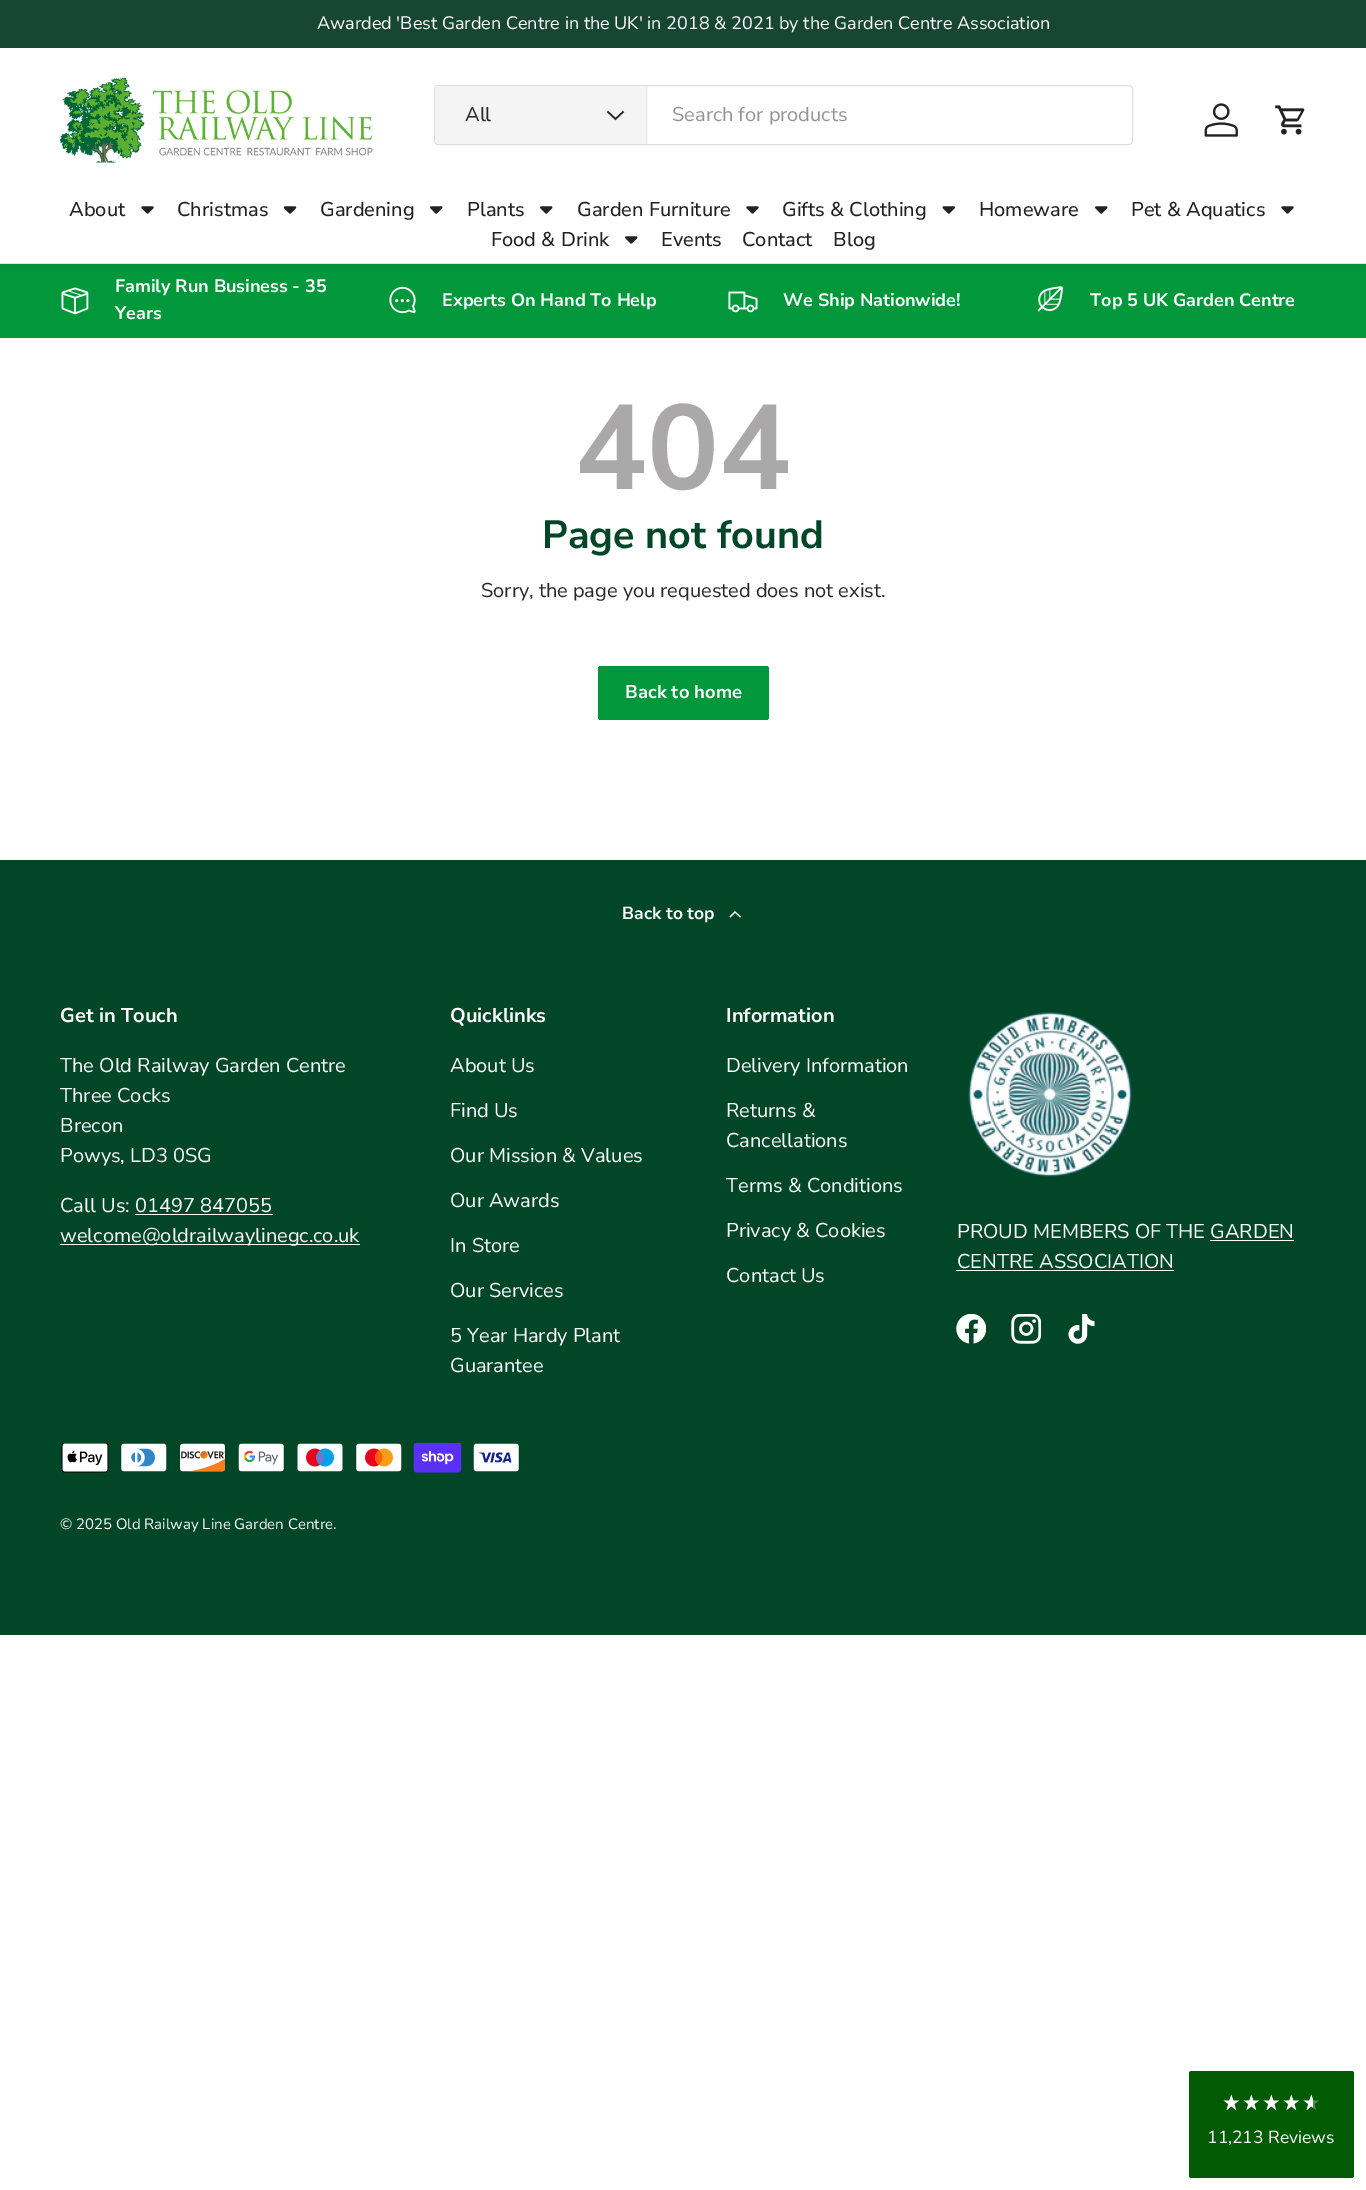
%!PS
<< /PageSize [1366 2190] /PageUsesTransparency true >> setpagedevice
/rgb { dup -16 bitshift 255 div exch dup -8 bitshift 255 and 255 div exch 255 and 255 div setrgbcolor } def
/font { [ exch dup neg 0 0 3 -1 roll 0 0 ] selectfont } def
/text { moveto show } def
/alpha { dup .setfillconstantalpha .setstrokeconstantalpha } def
/roundrect { 5 dict begin { /r /h /w /y /x } { exch def } forall
  x r add y moveto x w add y 2 copy h add r arct x w add y h add x 1 index r arct
  x y h add x y r arct x y 2 copy exch w add exch r arct closepath end } def
/shadow { 12 dict begin { /a /b /q /h /w /y /x } { exch def } forall gsave /was 0 def
  9 -2 -9 { dup b mul 4 div /e exch def 1 sub .425 mul 2.718 exch exp 1 add a .99 .min exch div /now exch def
    1 1 now sub 1 was sub div sub alpha /was now def
    w h .min e 2 mul add 0 gt { x e sub y e sub w e 2 mul add h e 2 mul add
      q e add b .6 mul add w h .min 2 div e add .min 0 .max roundrect fill } if } for grestore end } def
/picture { 5 dict begin { /h /w /y /x /name } { exch def } forall
  gsave x y translate w h scale
  w h 8 [w 0 0 h 0 0] name (r) file false 3 colorimage grestore end } def
0 .pushpdf14devicefilter
0 2190 translate 1 -1 scale
4 setmiterlimit
/s1 { /NunitoSans-Regular 18 font 16#FFFFFF rgb } def
/s2 { /NunitoSans-Regular 20 font 16#2C2528 rgb } def
/s3 { /NunitoSans-Regular 20 font 16#969294 rgb } def
/s4 { /NunitoSans-Medium 20 font 16#222222 rgb } def
/s5 { /NunitoSans-Bold 18 font 16#FFFFFF rgb } def
/s6 { /NunitoSans-Bold 120 font 16#ABA8A9 rgb } def
/s7 { /NunitoSans-Bold 39.5 font 16#014627 rgb } def
/s8 { /NunitoSans-Bold 18.5 font 16#FFFFFF rgb } def
/s9 { /NunitoSans-Bold 17.5 font 16#FFFFFF rgb } def
/s10 { /NunitoSans-Bold 20 font 16#FFFFFF rgb } def
/s11 { /NunitoSans-Regular 20 font 16#FFFFFF rgb } def
/s12 { /NunitoSans-Regular 15 font 16#FFFFFF rgb } def
/s13 { /NunitoSans-Regular 17.5 font 16#FFFFFF rgb } def
16#FFFFFF rgb
0 0 1366 2190 rectfill
16#01983B rgb
0 264 1366 74 rectfill
16#000000 rgb
-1 46 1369 219 0 2 0.08 shadow
16#174733 rgb
0 0 1366 48 rectfill
s1
(Awarded 'Best Garden Centre in the UK' in 2018 & 2021 by the Garden Centre Association) 317 29 text
0 48 1366 215 rectfill
(pic1.raw) 60 77 313 86 picture
16#DFDEDF rgb
434.5 85.5 698 59 3.5 roundrect stroke
16#F4F4F4 rgb
439 86 moveto 648 86 lineto 648 144 lineto 439 144 lineto 437 144 435 142 435 140 curveto 435 90 lineto 435 88 437 86 439 86 curveto closepath fill
16#EAEAEA rgb
646 86 1 58 rectfill
s2
(All) 465 121 text
1.6 setlinewidth
623.5 111.5 moveto 615.5 119 lineto 607.5 111.5 lineto stroke
s3
(Search for products) 672 121 text
(pic2.raw) 1204 103 34 34 picture
(pic3.raw) 1275 105 30 30 picture
s4
(About) 69 216 text
(pic4.raw) 141 206 13 8 picture
(Christmas) 177 216 text
(pic5.raw) 283 206 14 8 picture
(Gardening) 320 216 text
(pic6.raw) 430 206 13 8 picture
(Plants) 467 216 text
(pic6.raw) 540 206 13 8 picture
(Garden Furniture) 577 216 text
(pic4.raw) 746 206 13 8 picture
(Gifts & Clothing) 782 216 text
(pic7.raw) 942 206 13 8 picture
(Homeware) 979 216 text
(pic6.raw) 1095 206 13 8 picture
(Pet & Aquatics) 1131 216 text
(pic4.raw) 1281 206 13 8 picture
(Food & Drink) 491 246 text
(pic6.raw) 625 236 13 8 picture
(Events) 661 246 text
(Contact) 742 246 text
(Blog) 833 246 text
16#DEDEDE rgb
0 263 1366 1 rectfill
(pic8.raw) 61 287 28 28 picture
s5
(Family Run Business - 35) 115 292 text
(Years) 115 319 text
(pic9.raw) 389 286 27 28 picture
(Experts On Hand To Help) 442 306 text
(pic10.raw) 728 291 30 22 picture
(We Ship Nationwide!) 783 306 text
(pic11.raw) 1037 286 26 26 picture
(Top 5 UK Garden Centre) 1090 306 text
s6
(404) 575 489 text
s7
(Page not found) 542 548 text
s2
(Sorry, the page you requested does not exist.) 481 597 text
gsave 598 666 171 54 4 roundrect clip newpath
<< /ShadingType 2 /ColorSpace /DeviceRGB /Coords [264 631 760 755] /Extend [true true] /Function << /FunctionType 3 /Domain [0 1] /Functions [<< /FunctionType 2 /Domain [0 1] /C0 [0.165 0.702 0.373] /C1 [0.165 0.702 0.373] /N 1 >> << /FunctionType 2 /Domain [0 1] /C0 [0.004 0.596 0.231] /C1 [0.004 0.596 0.231] /N 1 >>] /Bounds [0.6] /Encode [0 1 0 1] >> >> shfill grestore
s8
(Back to home) 625 698 text
16#014627 rgb
0 860 1366 775 rectfill
s9
(Back to top) 622 919 text
1.1 setlinewidth
730 917 moveto 735 912 lineto 740.5 917 lineto stroke
s10
(Get in Touch) 60 1022 text
s11
(The Old Railway Garden Centre) 60 1072 text
(Three Cocks) 60 1102 text
(Brecon) 60 1132 text
(Powys, LD3 0SG) 60 1162 text
(Call Us: 01497 847055) 60 1212 text
135 1214 138 1 rectfill
60 1244 300 1 rectfill
(welcome@oldrailwaylinegc.co.uk) 60 1242 text
s10
(Quicklinks) 450 1022 text
s11
(About Us) 450 1072 text
(Find Us) 450 1117 text
(Our Mission & Values) 450 1162 text
(Our Awards) 450 1207 text
(In Store) 450 1252 text
(Our Services) 450 1297 text
(5 Year Hardy Plant) 450 1342 text
(Guarantee) 450 1372 text
s10
(Information) 726 1022 text
s11
(Delivery Information) 726 1072 text
(Returns &) 726 1117 text
(Cancellations) 726 1147 text
(Terms & Conditions) 726 1192 text
(Privacy & Cookies) 726 1237 text
(Contact Us) 726 1282 text
(pic12.raw) 968 1012 164 165 picture
(PROUD MEMBERS OF THE GARDEN) 957 1238 text
(CENTRE ASSOCIATION) 957 1268 text
1210 1240 84 1 rectfill
956 1270 218 1 rectfill
(pic13.raw) 956 1314 30 30 picture
(pic14.raw) 1011 1314 30 30 picture
(pic15.raw) 1068 1314 27 30 picture
(pic16.raw) 61 1443 48 30 picture
(pic17.raw) 120 1443 47 29 picture
(pic18.raw) 179 1443 47 29 picture
(pic19.raw) 238 1443 47 29 picture
(pic20.raw) 297 1443 46 29 picture
(pic21.raw) 355 1443 47 29 picture
(pic22.raw) 413 1443 49 30 picture
(pic23.raw) 473 1443 47 29 picture
s12
(© 2025 Old Railway Line Garden Centre.) 60 1529 text
16#005B03 rgb
1189 2071 165 107 2.5 roundrect fill
(pic24.raw) 1223 2094 17 17 picture
(pic24.raw) 1243 2094 17 17 picture
(pic24.raw) 1263 2094 17 17 picture
(pic24.raw) 1283 2094 17 17 picture
(pic25.raw) 1303 2094 16 17 picture
s13
(11,213 Reviews) 1207 2143 text
.poppdf14devicefilter showpage
